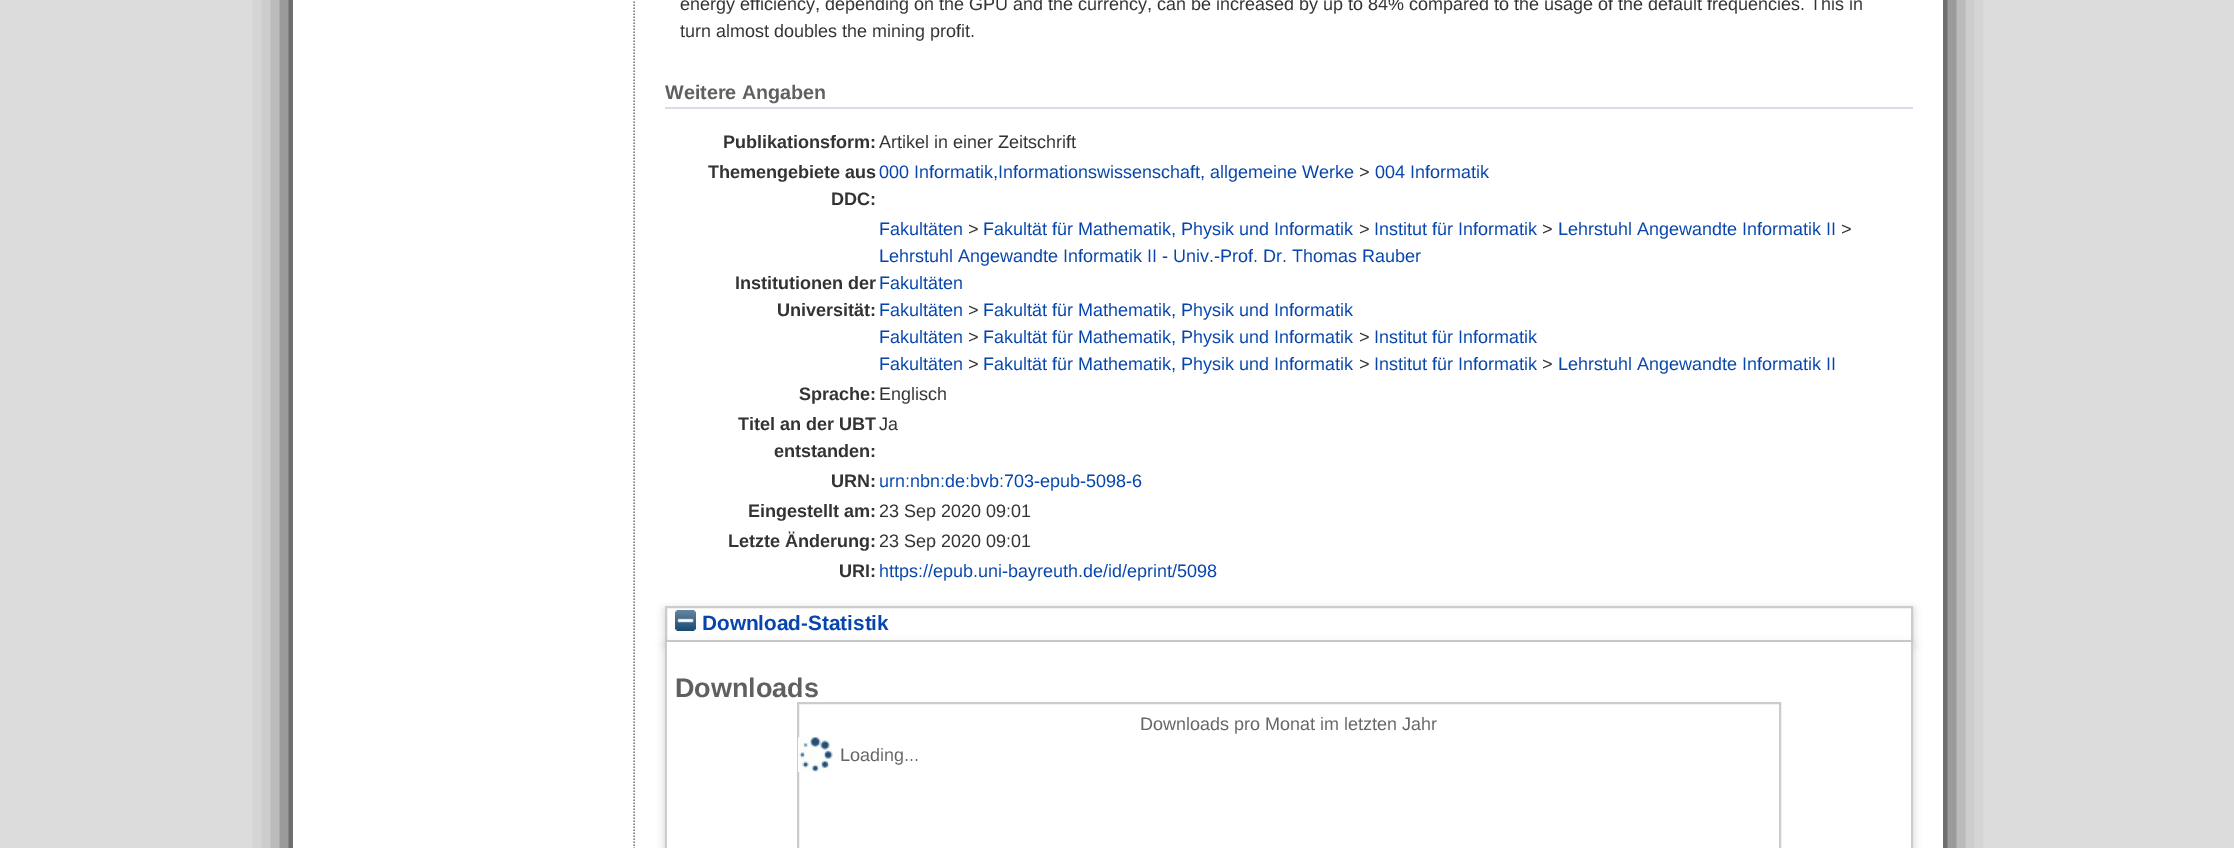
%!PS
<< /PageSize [2234 848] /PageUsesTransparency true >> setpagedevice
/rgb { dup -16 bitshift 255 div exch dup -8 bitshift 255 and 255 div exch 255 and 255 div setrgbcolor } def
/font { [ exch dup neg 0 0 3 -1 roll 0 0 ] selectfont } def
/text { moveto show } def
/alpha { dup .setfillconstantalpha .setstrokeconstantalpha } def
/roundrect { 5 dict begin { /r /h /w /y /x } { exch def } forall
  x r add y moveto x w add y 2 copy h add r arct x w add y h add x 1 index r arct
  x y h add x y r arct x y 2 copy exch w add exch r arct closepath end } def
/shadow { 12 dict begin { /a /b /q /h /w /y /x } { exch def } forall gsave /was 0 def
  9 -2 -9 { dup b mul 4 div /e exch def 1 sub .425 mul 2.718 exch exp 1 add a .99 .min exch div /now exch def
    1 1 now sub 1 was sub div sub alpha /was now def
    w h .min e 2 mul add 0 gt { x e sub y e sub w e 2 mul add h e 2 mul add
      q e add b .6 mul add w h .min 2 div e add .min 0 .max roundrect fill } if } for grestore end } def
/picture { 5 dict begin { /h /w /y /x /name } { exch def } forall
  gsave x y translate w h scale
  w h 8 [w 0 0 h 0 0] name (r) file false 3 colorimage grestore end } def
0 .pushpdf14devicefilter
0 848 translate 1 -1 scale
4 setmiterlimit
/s1 { /LiberationSans-Regular 18 font 16#333333 rgb } def
/s2 { /LiberationSans-Bold 19.75 font 16#606060 rgb } def
/s3 { /LiberationSans-Bold 18 font 16#333333 rgb } def
/s4 { /LiberationSans-Regular 18 font 16#0645AD rgb } def
/s5 { /LiberationSans-Bold 20.75 font 16#0645AD rgb } def
/s6 { /LiberationSans-Bold 27 font 16#606060 rgb } def
/s7 { /LiberationSans-Regular 18 font 16#666666 rgb } def
16#DCDCDC rgb
0 0 2234 848 rectfill
16#000000 rgb
293 -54 1650 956 0 18 1 shadow
16#FFFFFF rgb
293 0 1650 848 rectfill
16#808080 rgb
1.5 setlinewidth
[1.5 1.5] 0 setdash
634 -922.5 moveto 634 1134 lineto stroke
s1
(energy efficiency, depending on the GPU and the currency, can be increased by up to 84% compared to the usage of the default frequencies. This in) 680 10 text
(turn almost doubles the mining profit.) 680 37 text
16#D8DBEF rgb
665 107 1248 2 rectfill
s2
(Weitere Angaben) 665 99 text
s3
(Publikationsform:) 723 148 text
s1
(Artikel in einer Zeitschrift) 879 148 text
s3
(Themengebiete aus) 708 178 text
(DDC:) 831 205 text
s4
(000 Informatik,Informationswissenschaft, allgemeine Werke) 879 178 text
s1
(>) 1359 178 text
s4
(004 Informatik) 1375 178 text
s3
(Institutionen der) 735 289 text
(Universität:) 777 316 text
s4
(Fakultäten) 879 235 text
s1
(>) 968 235 text
s4
(Fakultät für Mathematik, Physik und Informatik) 983 235 text
s1
(>) 1359 235 text
s4
(Institut für Informatik) 1374 235 text
s1
(>) 1542 235 text
s4
(Lehrstuhl Angewandte Informatik II) 1558 235 text
s1
(>) 1841 235 text
s4
(Lehrstuhl Angewandte Informatik II - Univ.-Prof. Dr. Thomas Rauber) 879 262 text
(Fakultäten) 879 289 text
(Fakultäten) 879 316 text
s1
(>) 968 316 text
s4
(Fakultät für Mathematik, Physik und Informatik) 983 316 text
(Fakultäten) 879 343 text
s1
(>) 968 343 text
s4
(Fakultät für Mathematik, Physik und Informatik) 983 343 text
s1
(>) 1359 343 text
s4
(Institut für Informatik) 1374 343 text
(Fakultäten) 879 370 text
s1
(>) 968 370 text
s4
(Fakultät für Mathematik, Physik und Informatik) 983 370 text
s1
(>) 1359 370 text
s4
(Institut für Informatik) 1374 370 text
s1
(>) 1542 370 text
s4
(Lehrstuhl Angewandte Informatik II) 1558 370 text
s3
(Sprache:) 799 400 text
s1
(Englisch) 879 400 text
s3
(Titel an der UBT) 738 430 text
(entstanden:) 774 457 text
s1
(Ja) 879 430 text
s3
(URN:) 831 487 text
s4
(urn:nbn:de:bvb:703-epub-5098-6) 879 487 text
s3
(Eingestellt am:) 748 517 text
s1
(23 Sep 2020 09:01) 879 517 text
s3
(Letzte Änderung:) 728 547 text
s1
(23 Sep 2020 09:01) 879 547 text
s3
(URI:) 839 577 text
s4
(https://epub.uni-bayreuth.de/id/eprint/5098) 879 577 text
16#646464 rgb
665 609 1248 36 0 4.5 0.3 shadow
16#FFFFFF rgb
666 607 moveto 1912 607 lineto 1912 641 lineto 666 641 lineto closepath gsave fill grestore
16#CCCCCC rgb
2 setlinewidth
[] 0 setdash
stroke
16#646464 rgb
665 645 1248 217 0 4.5 0.3 shadow
(pic1.raw) 675 610 21 21 picture
s5
(Download-Statistik) 702 630 text
16#FFFFFF rgb
667 642 1244 206 rectfill
16#CCCCCC rgb
1911 642 2 206 rectfill
665 642 2 206 rectfill
s6
(Downloads) 675 697 text
16#CCCCCC rgb
798 703 982 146 rectstroke
s7
(Downloads pro Monat im letzten Jahr) 1140 730 text
(pic2.raw) 798 737 35 35 picture
(Loading...) 840 761 text
.poppdf14devicefilter showpage
